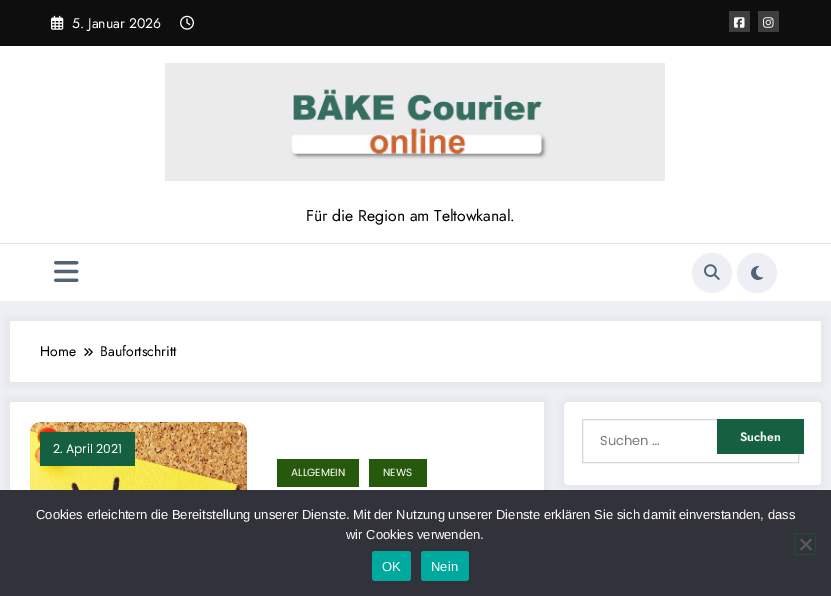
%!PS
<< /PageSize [831 596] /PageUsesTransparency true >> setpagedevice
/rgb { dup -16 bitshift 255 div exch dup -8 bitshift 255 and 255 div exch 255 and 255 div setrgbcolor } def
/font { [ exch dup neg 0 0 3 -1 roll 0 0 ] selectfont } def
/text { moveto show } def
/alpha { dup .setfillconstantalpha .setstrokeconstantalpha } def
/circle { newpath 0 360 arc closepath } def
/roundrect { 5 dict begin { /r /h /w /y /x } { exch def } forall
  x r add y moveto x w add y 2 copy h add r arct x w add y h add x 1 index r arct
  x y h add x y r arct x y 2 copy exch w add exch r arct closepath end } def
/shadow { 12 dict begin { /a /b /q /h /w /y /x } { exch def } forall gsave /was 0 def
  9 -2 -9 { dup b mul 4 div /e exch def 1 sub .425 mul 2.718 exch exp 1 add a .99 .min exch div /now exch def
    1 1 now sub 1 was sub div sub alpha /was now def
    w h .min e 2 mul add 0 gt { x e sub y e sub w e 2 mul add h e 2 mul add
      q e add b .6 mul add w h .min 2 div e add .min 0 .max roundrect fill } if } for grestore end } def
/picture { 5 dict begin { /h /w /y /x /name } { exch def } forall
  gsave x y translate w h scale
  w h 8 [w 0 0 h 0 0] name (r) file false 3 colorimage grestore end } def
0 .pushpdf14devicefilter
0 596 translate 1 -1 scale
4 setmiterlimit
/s1 { /Jost-Regular 14 font 16#FFFFFF rgb } def
/s2 { /Jost-Regular 15.75 font 16#000000 rgb } def
/s3 { /Jost-Regular 14 font 16#000000 rgb } def
/s4 { /Poppins-Regular 13 font 16#777777 rgb } def
/s5 { /Jost-SemiBold 12.25 font 16#FFFFFF rgb } def
/s6 { /Poppins-Regular 12.25 font 16#FFFFFF rgb } def
/s7 { /Poppins-Regular 10.5 font 16#FFFFFF rgb } def
/s8 { /LiberationSans-Regular 13 font 16#FFFFFF rgb } def
16#EEEEF5 rgb
0 0 831 596 rectfill
16#0E0E0E rgb
0 0 831 46 rectfill
(pic1.raw) 51 15 13 15 picture
s1
(5. Januar 2026) 72 28 text
(pic2.raw) 180 15 14 15 picture
16#3E3E3E rgb
729 11 21 21 rectfill
(pic3.raw) 734 17 11 11 picture
758 11 21 21 rectfill
(pic4.raw) 763 17 11 11 picture
16#FFFFFF rgb
0 46 831 255 rectfill
(pic5.raw) 165 63 500 118 picture
s2
(Für die Region am Teltowkanal.) 306 221 text
16#E1E1E1 rgb
0 243 831 1 rectfill
(pic6.raw) 54 261 25 21 picture
16#EEEEF5 rgb
712 273 20 circle fill
(pic7.raw) 704 264 16 16 picture
757 273 20 circle fill
(pic8.raw) 751 266 12 14 picture
16#171723 rgb
8 319 815 65 0 4 0.05 shadow
16#FFFFFF rgb
10 321 811 61 rectfill
s3
(Home) 40 356 text
(pic9.raw) 84 348 9 8 picture
(Baufortschritt) 100 356 text
16#171723 rgb
562 400 261 87 6 4 0.05 shadow
16#FFFFFF rgb
564 402 257 83 4 roundrect fill
16#D7D7D7 rgb
582.5 419.5 216 43 rectstroke
s4
(Suchen …) 600 445 text
16#156040 rgb
717 419 87 35 rectfill
s5
(Suchen) 740 441 text
16#171723 rgb
8 400 538 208 0 4 0.05 shadow
16#FFFFFF rgb
10 402 534 88 rectfill
(pic10.raw) 30 422 217 68 picture
16#156040 rgb
40 432 95 34 rectfill
s6
(2. April 2021) 53 453 text
16#27590D rgb
277 459 82 28 rectfill
s7
(ALLGEMEIN) 291 476 text
16#27590D rgb
369 459 58 28 rectfill
s7
(NEWS) 383 476 text
16#32323A rgb
0 490 831 106 rectfill
s8
(Cookies erleichtern die Bereitstellung unserer Dienste. Mit der Nutzung unserer Dienste erklären Sie sich damit einverstanden, dass) 36 519 text
(wir Cookies verwenden.) 346 539 text
16#24493D rgb
794.5 533.5 21 21 rectstroke
16#59595D rgb
810.5 538.5 moveto 812 540 lineto 801.5 550.5 lineto 800 549 lineto closepath fill
800 540 moveto 801.5 538.5 lineto 812 549 lineto 810.5 550.5 lineto closepath fill
16#00A99D rgb
372 551 39 30 3 roundrect fill
s8
(OK) 382 571 text
16#00A99D rgb
421 551 48 30 3 roundrect fill
s8
(Nein) 431 571 text
.poppdf14devicefilter showpage
